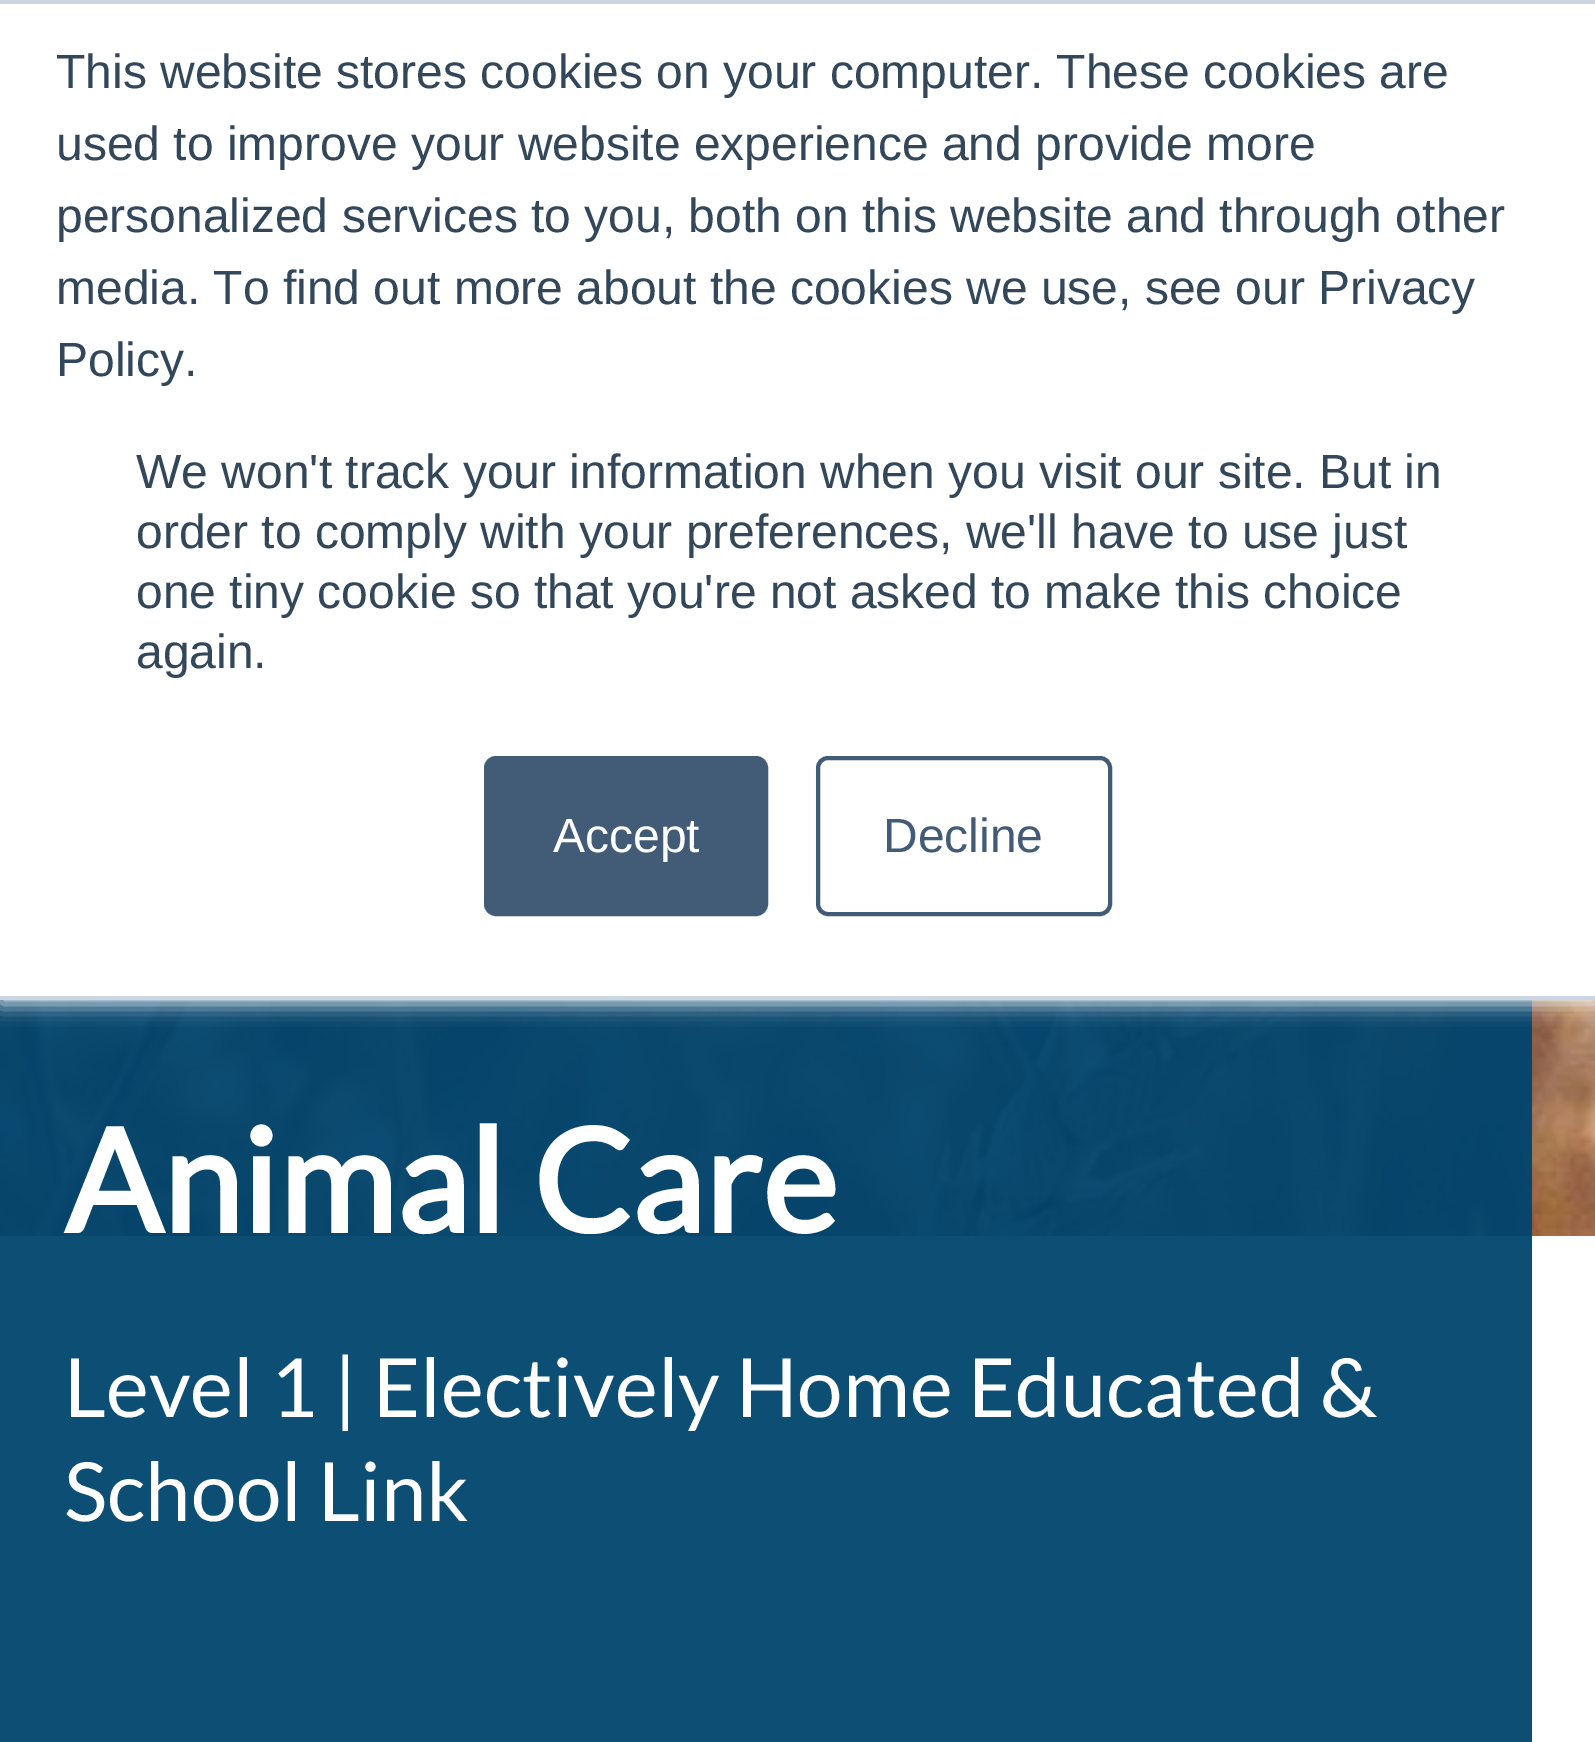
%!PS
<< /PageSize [1595 1742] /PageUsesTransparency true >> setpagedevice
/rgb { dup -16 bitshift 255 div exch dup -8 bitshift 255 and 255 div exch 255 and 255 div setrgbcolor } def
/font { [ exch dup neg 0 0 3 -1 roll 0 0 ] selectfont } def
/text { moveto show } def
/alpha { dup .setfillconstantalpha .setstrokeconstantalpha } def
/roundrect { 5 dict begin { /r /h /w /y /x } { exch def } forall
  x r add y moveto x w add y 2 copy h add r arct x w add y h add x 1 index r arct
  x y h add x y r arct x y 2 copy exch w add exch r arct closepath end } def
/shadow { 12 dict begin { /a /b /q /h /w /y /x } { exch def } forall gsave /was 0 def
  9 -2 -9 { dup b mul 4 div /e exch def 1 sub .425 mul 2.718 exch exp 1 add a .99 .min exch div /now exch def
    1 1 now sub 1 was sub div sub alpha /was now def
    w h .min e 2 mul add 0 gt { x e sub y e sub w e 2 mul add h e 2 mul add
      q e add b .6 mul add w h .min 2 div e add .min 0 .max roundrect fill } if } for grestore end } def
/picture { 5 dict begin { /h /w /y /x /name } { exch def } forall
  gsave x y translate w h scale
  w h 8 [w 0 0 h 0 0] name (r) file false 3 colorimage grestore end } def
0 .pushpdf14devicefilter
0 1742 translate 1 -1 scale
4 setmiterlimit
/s1 { /LiberationSans-Regular 48 font 16#33475B rgb } def
/s2 { /LiberationSans-Regular 48 font 16#FFFFFF rgb } def
/s3 { /LiberationSans-Regular 48 font 16#425B76 rgb } def
/s4 { /Lato-Bold 140.75 font 16#FFFFFF rgb } def
/s5 { /Lato-Regular 80 font 16#FFFFFF rgb } def
16#FFFFFF rgb
0 0 1595 1742 rectfill
(pic1.raw) 0 1000 1595 236 picture
0.95 alpha
16#00446E rgb
0 1000 1532 742 rectfill
1 alpha
16#EAF0F6 rgb
0 4 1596 1000 0 10 1 shadow
16#FFFFFF rgb
0 4 1595 992 rectfill
16#CBD6E2 rgb
0 0 1595 4 rectfill
0 996 1595 4 rectfill
s1
(This website stores cookies on your computer. These cookies are) 56 88 text
(used to improve your website experience and provide more) 56 160 text
(personalized services to you, both on this website and through other) 56 232 text
(media. To find out more about the cookies we use, see our Privacy) 56 304 text
(Policy.) 56 376 text
(We won't track your information when you visit our site. But in) 136 488 text
(order to comply with your preferences, we'll have to use just) 136 548 text
(one tiny cookie so that you're not asked to make this choice) 136 608 text
(again.) 136 668 text
16#425B76 rgb
486 758 280 156 10 roundrect gsave fill grestore
4 setlinewidth
stroke
s2
(Accept) 553 852 text
16#425B76 rgb
818 758 292 156 10 roundrect stroke
(Decline) 883 852 text
s4
(Animal Care) 64 1233 text
s5
(Level 1 | Electively Home Educated &) 64 1417 text
(School Link) 64 1521 text
.poppdf14devicefilter showpage
